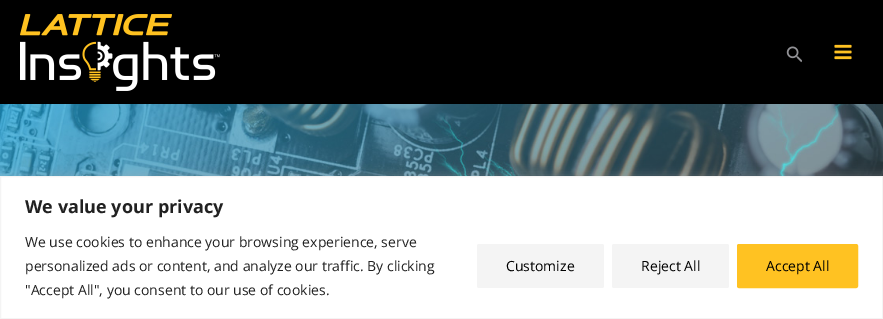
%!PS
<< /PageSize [883 319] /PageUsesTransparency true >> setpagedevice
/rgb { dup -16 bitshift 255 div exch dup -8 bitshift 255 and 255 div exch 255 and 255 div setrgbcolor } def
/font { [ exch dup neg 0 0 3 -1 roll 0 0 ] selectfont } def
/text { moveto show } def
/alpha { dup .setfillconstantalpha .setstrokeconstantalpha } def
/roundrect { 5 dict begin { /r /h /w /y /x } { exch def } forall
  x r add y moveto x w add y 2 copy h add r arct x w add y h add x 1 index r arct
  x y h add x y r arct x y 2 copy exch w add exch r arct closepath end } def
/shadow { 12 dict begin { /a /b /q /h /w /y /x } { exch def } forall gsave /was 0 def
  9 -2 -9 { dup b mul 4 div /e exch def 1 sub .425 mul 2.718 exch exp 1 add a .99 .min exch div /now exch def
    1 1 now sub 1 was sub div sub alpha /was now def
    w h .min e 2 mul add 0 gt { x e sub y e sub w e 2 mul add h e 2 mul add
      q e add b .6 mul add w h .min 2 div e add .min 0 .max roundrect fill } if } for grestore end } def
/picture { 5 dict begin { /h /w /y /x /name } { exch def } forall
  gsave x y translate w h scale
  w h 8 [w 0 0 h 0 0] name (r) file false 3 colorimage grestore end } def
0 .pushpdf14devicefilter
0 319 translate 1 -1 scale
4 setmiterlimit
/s1 { /OpenSans-Bold 18 font 16#212121 rgb } def
/s2 { /OpenSans-Regular 14 font 16#212121 rgb } def
/s3 { /OpenSans-Regular 14 font 16#000000 rgb } def
16#FFFFFF rgb
0 0 883 319 rectfill
16#000000 rgb
0 0 883 104 rectfill
(pic1.raw) 20 14 200 77 picture
(pic2.raw) 786 46 16 17 picture
(pic3.raw) 834 44 18 16 picture
(pic4.raw) 0 104 883 72 picture
16#ACABAB rgb
0 175 883 143 0 5 0.3 shadow
16#FFFFFF rgb
0.5 176.5 moveto 882.5 176.5 lineto 882.5 318.5 lineto 0.5 318.5 lineto closepath gsave fill grestore
16#F4F4F4 rgb
stroke
s1
(We value your privacy) 25 213 text
s2
(We use cookies to enhance your browsing experience, serve) 25 247 text
(personalized ads or content, and analyze our traffic. By clicking) 25 271 text
("Accept All", you consent to our use of cookies.) 25 295 text
16#F4F4F4 rgb
477 244 127 44 2 roundrect fill
s3
(Customize) 506 271 text
16#F4F4F4 rgb
612 244 117 44 2 roundrect fill
s3
(Reject All) 641 271 text
16#FFC222 rgb
738 245 119 42 1 roundrect gsave fill grestore
2 setlinewidth
stroke
s3
(Accept All) 766 271 text
.poppdf14devicefilter showpage
